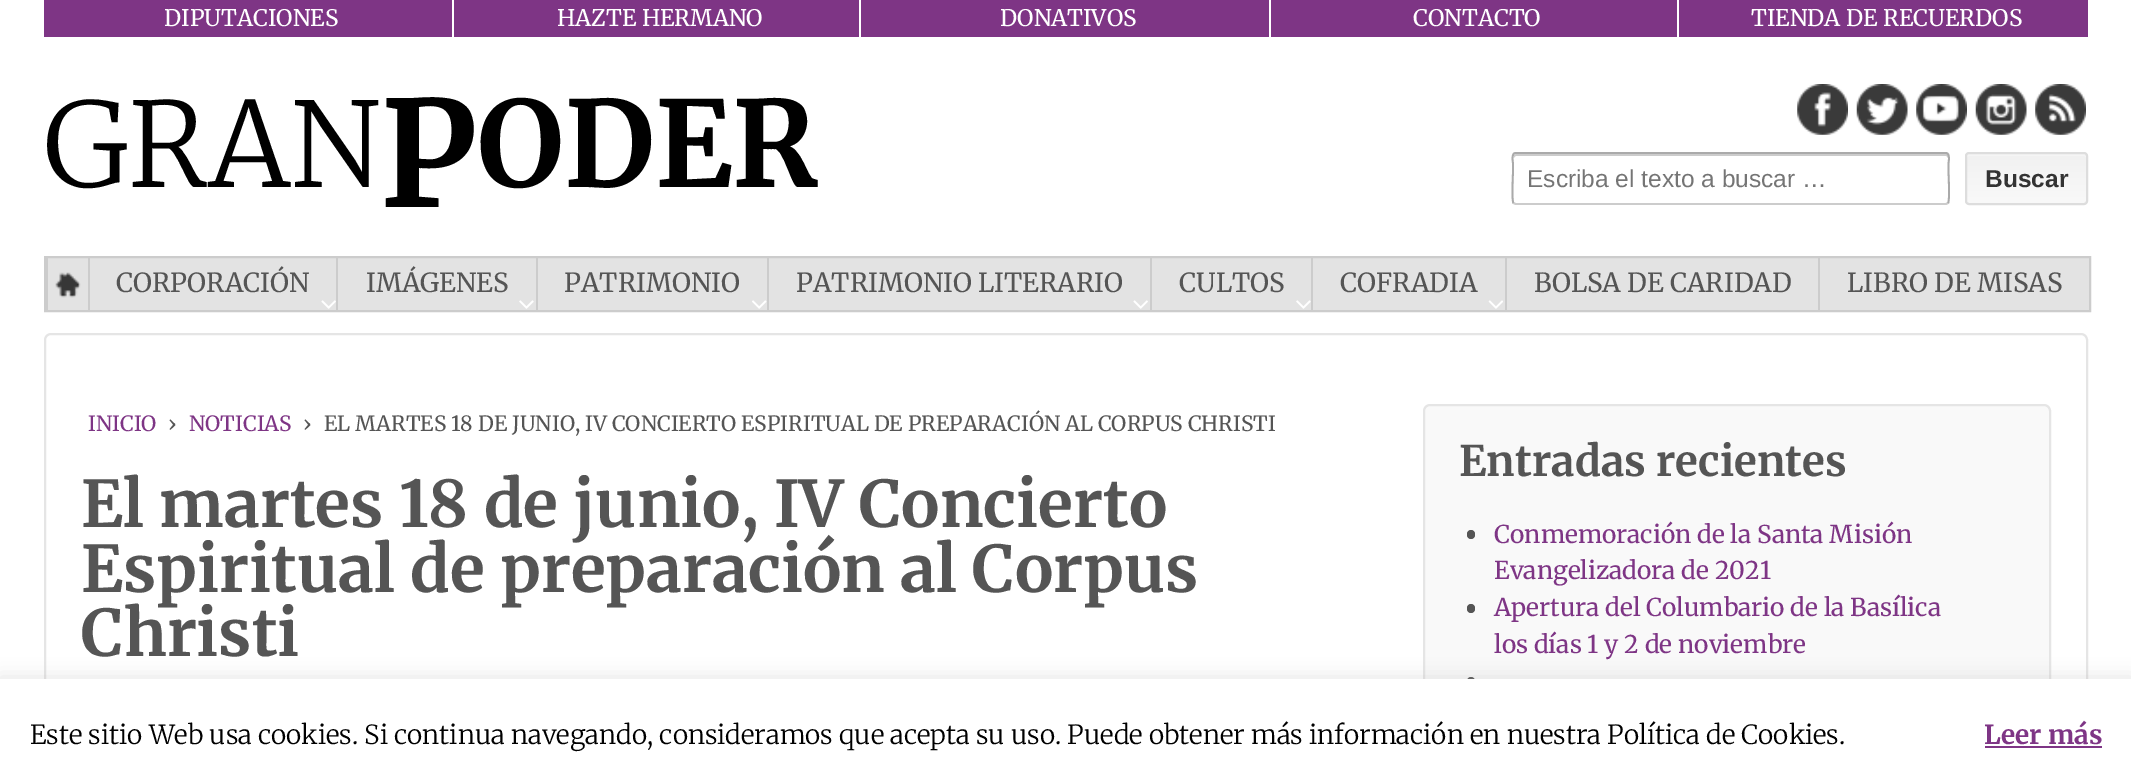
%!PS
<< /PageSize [2131 784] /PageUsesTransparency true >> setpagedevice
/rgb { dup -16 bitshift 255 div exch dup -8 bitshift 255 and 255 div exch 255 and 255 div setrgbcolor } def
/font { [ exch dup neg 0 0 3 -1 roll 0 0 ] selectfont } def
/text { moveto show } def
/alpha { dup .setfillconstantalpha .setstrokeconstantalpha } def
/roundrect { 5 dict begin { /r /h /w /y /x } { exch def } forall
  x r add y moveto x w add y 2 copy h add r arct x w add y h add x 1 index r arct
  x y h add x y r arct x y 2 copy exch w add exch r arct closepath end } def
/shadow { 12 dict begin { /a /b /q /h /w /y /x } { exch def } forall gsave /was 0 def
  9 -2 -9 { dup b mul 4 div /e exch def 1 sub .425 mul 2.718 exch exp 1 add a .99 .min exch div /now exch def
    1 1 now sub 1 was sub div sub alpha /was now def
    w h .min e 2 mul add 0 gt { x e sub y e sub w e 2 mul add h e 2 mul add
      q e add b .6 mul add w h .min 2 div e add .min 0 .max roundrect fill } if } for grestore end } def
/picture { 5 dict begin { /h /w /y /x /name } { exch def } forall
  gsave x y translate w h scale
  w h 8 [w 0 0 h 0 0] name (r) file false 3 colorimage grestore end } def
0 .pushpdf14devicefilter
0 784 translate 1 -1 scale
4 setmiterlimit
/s1 { /Merriweather-Regular 22.75 font 16#FFFFFF rgb } def
/s2 { /Merriweather-Light 117 font 16#000000 rgb } def
/s3 { /Merriweather-Bold 147 font 16#000000 rgb } def
/s4 { /Merriweather-Bold 119 font 16#000000 rgb } def
/s5 { /LiberationSans-Regular 24.5 font 16#757575 rgb } def
/s6 { /LiberationSans-Bold 24.5 font 16#333333 rgb } def
/s7 { /Merriweather-Regular 26.25 font 16#555555 rgb } def
/s8 { /Merriweather-Regular 21 font 16#7E3585 rgb } def
/s9 { /Merriweather-Regular 21 font 16#555555 rgb } def
/s10 { /Merriweather-Bold 64.3 font 16#555555 rgb } def
/s11 { /Merriweather-Bold 42 font 16#555555 rgb } def
/s12 { /Merriweather-Regular 24.5 font 16#7E3585 rgb } def
/s13 { /Merriweather-Light 26.25 font 16#000000 rgb } def
/s14 { /Merriweather-Bold 26.25 font 16#7E3585 rgb } def
16#FFFFFF rgb
0 0 2131 784 rectfill
16#7E3585 rgb
44 0 2044 37 rectfill
16#FFFFFF rgb
452 0 2 37 rectfill
s1
(DIPUTACIONES) 164 26 text
859 0 2 37 rectfill
(HAZTE HERMANO) 557 26 text
1269 0 2 37 rectfill
(DONATIVOS) 1000 26 text
1677 0 2 37 rectfill
(CONTACTO) 1413 26 text
(TIENDA DE RECUERDOS) 1751 26 text
s2
(GRAN) 44 187 text
s3
(P) 380 207 text
s4
(ODER) 477 187 text
(pic1.raw) 1797 84 51 51 picture
(pic2.raw) 1856 84 52 51 picture
(pic3.raw) 1916 84 51 51 picture
(pic4.raw) 1975 84 52 51 picture
(pic5.raw) 2035 84 51 51 picture
16#CCCCCC rgb
1516 156 moveto 1946 156 lineto 1947 156 1948 157 1948 158 curveto 1948 156 1948 154 1946 154 curveto 1516 154 lineto 1514 155 lineto 1514 158 lineto 1514 157 1515 156 1516 156 curveto closepath fill
1.8 setlinewidth
1948 203 moveto 1946 204 lineto 1515.5 204 lineto 1513.5 203 lineto stroke
16#AAAAAA rgb
1513.5 203 moveto 1511.5 201 1513 175 1513 171 curveto 1513 163.5 lineto 1513 162.5 1511 153 1515.5 153 curveto 1946 153 lineto 1950.5 153 1948.5 162.5 1948.5 163.5 curveto 1948.5 171 lineto 1948.5 175 1950 201 1948 203 curveto stroke
s5
(Escriba el texto a buscar …) 1527 187 text
gsave
1965 152 123 53 4 roundrect clip newpath
gsave 1965 154 moveto 2088 154 lineto 2088 203 lineto 1965 203 lineto closepath clip newpath
<< /ShadingType 2 /ColorSpace /DeviceRGB /Coords [2027 203 2027 154] /Extend [true true] /Function << /FunctionType 2 /Domain [0 1] /C0 [0.976 0.976 0.976] /C1 [0.945 0.945 0.945] /N 1 >> >> shfill grestore
grestore
16#F5F5F5 rgb
1969 156 moveto 2084 156 lineto 2085 156 2086 157 2086 158 curveto 2086 156 lineto 2086 155 2085 154 2084 154 curveto 1969 154 lineto 1968 154 1967 155 1967 156 curveto 1967 158 lineto 1967 157 1968 156 1969 156 curveto closepath fill
16#DDDDDD rgb
2 setlinewidth
1966 153 121 51 3 roundrect stroke
s6
(Buscar) 1985 187 text
16#E3E3E3 rgb
48 258 2041 52 rectfill
16#CCCCCC rgb
45 257 2045 54 rectstroke
46 257 2 53 rectfill
(pic6.raw) 55 272 26 26 picture
88 257 2 53 rectfill
s7
(CORPORACIÓN) 116 292 text
(pic7.raw) 321 300 15 9 picture
16#CCCCCC rgb
336 257 2 53 rectfill
s7
(IMÁGENES) 366 292 text
(pic8.raw) 519 300 15 9 picture
16#CCCCCC rgb
536 257 2 53 rectfill
s7
(PATRIMONIO) 564 292 text
(pic9.raw) 752 300 15 9 picture
16#CCCCCC rgb
767 257 2 53 rectfill
s7
(PATRIMONIO LITERARIO) 796 292 text
(pic7.raw) 1133 300 15 9 picture
16#CCCCCC rgb
1150 257 2 53 rectfill
s7
(CULTOS) 1179 292 text
(pic8.raw) 1296 300 15 9 picture
16#CCCCCC rgb
1311 257 2 53 rectfill
s7
(COFRADIA) 1340 292 text
(pic10.raw) 1488 300 15 9 picture
16#CCCCCC rgb
1505 257 2 53 rectfill
s7
(BOLSA DE CARIDAD) 1534 292 text
16#CCCCCC rgb
1818 257 2 53 rectfill
s7
(LIBRO DE MISAS) 1847 292 text
16#E5E5E5 rgb
45 334 2042 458 6 roundrect stroke
s8
(INICIO) 88 431 text
s9
(›) 168 431 text
s8
(NOTICIAS) 189 431 text
s9
(›) 303 431 text
(EL MARTES 18 DE JUNIO, IV CONCIERTO ESPIRITUAL DE PREPARACIÓN AL CORPUS CHRISTI) 324 431 text
s10
(El martes 18 de junio, IV Concierto) 81 527 text
(Espiritual de preparación al Corpus) 81 592 text
(Christi) 81 656 text
16#F9F9F9 rgb
1424 405 626 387 6 roundrect gsave fill grestore
16#E5E5E5 rgb
stroke
s11
(Entradas recientes) 1459 476 text
1467 530 8 9 4 roundrect fill
s12
(Conmemoración de la Santa Misión) 1494 543 text
(Evangelizadora de 2021) 1494 579 text
16#555555 rgb
1467 604 8 9 4 roundrect fill
s12
(Apertura del Columbario de la Basílica) 1494 616 text
(los días 1 y 2 de noviembre) 1494 653 text
16#555555 rgb
1467 677 8 9 4 roundrect fill
16#ACABAB rgb
0 677 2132 105 0 9 0.3 shadow
16#FFFFFF rgb
0 679 2131 105 rectfill
s13
(Este sitio Web usa cookies. Si continua navegando, consideramos que acepta su uso. Puede obtener más información en nuestra Política de Cookies.) 30 744 text
s14
(Leer más) 1984 744 text
1985 746 117 2 rectfill
.poppdf14devicefilter showpage
